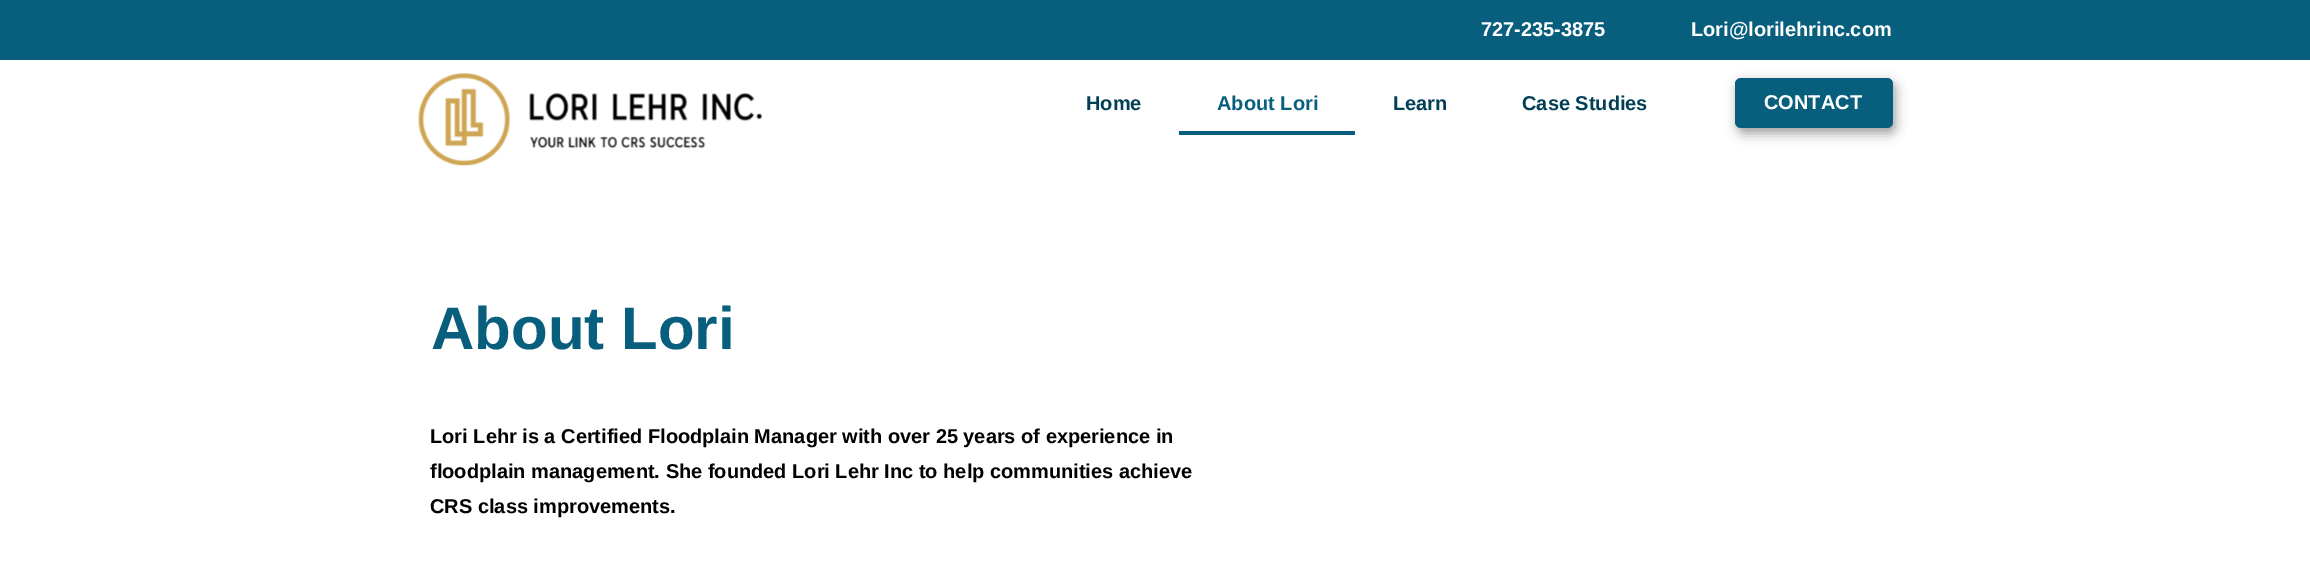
%!PS
<< /PageSize [2310 572] /PageUsesTransparency true >> setpagedevice
/rgb { dup -16 bitshift 255 div exch dup -8 bitshift 255 and 255 div exch 255 and 255 div setrgbcolor } def
/font { [ exch dup neg 0 0 3 -1 roll 0 0 ] selectfont } def
/text { moveto show } def
/alpha { dup .setfillconstantalpha .setstrokeconstantalpha } def
/roundrect { 5 dict begin { /r /h /w /y /x } { exch def } forall
  x r add y moveto x w add y 2 copy h add r arct x w add y h add x 1 index r arct
  x y h add x y r arct x y 2 copy exch w add exch r arct closepath end } def
/shadow { 12 dict begin { /a /b /q /h /w /y /x } { exch def } forall gsave /was 0 def
  9 -2 -9 { dup b mul 4 div /e exch def 1 sub .425 mul 2.718 exch exp 1 add a .99 .min exch div /now exch def
    1 1 now sub 1 was sub div sub alpha /was now def
    w h .min e 2 mul add 0 gt { x e sub y e sub w e 2 mul add h e 2 mul add
      q e add b .6 mul add w h .min 2 div e add .min 0 .max roundrect fill } if } for grestore end } def
/picture { 5 dict begin { /h /w /y /x /name } { exch def } forall
  gsave x y translate w h scale
  w h 8 [w 0 0 h 0 0] name (r) file false 3 colorimage grestore end } def
0 .pushpdf14devicefilter
0 572 translate 1 -1 scale
4 setmiterlimit
/s1 { /LiberationSans-Bold 20 font 16#FFFFFF rgb } def
/s2 { /LiberationSans-Bold 20 font 16#003F55 rgb } def
/s3 { /LiberationSans-Bold 20 font 16#085E7D rgb } def
/s4 { /LiberationSans-Bold 60 font 16#085E7D rgb } def
/s5 { /LiberationSans-Bold 20 font 16#000000 rgb } def
16#FFFFFF rgb
0 0 2310 572 rectfill
16#085E7D rgb
0 0 2310 60 rectfill
s1
(727-235-3875) 1481 36 text
(Lori@lorilehrinc.com) 1691 36 text
(pic1.raw) 418 73 344 93 picture
s2
(Home) 1086 110 text
s3
(About Lori) 1217 110 text
1179 131 176 4 rectfill
s2
(Learn) 1393 110 text
(Case Studies) 1522 110 text
16#000000 rgb
1738 83 157 50 6 6 0.4 shadow
16#085E7D rgb
1735 78 158 50 6 roundrect fill
s1
(CONTACT) 1764 109 text
s4
(About Lori) 431 349 text
s5
(Lori Lehr is a Certified Floodplain Manager with over 25 years of experience in) 430 443 text
(floodplain management. She founded Lori Lehr Inc to help communities achieve) 430 478 text
(CRS class improvements.) 430 513 text
.poppdf14devicefilter showpage
